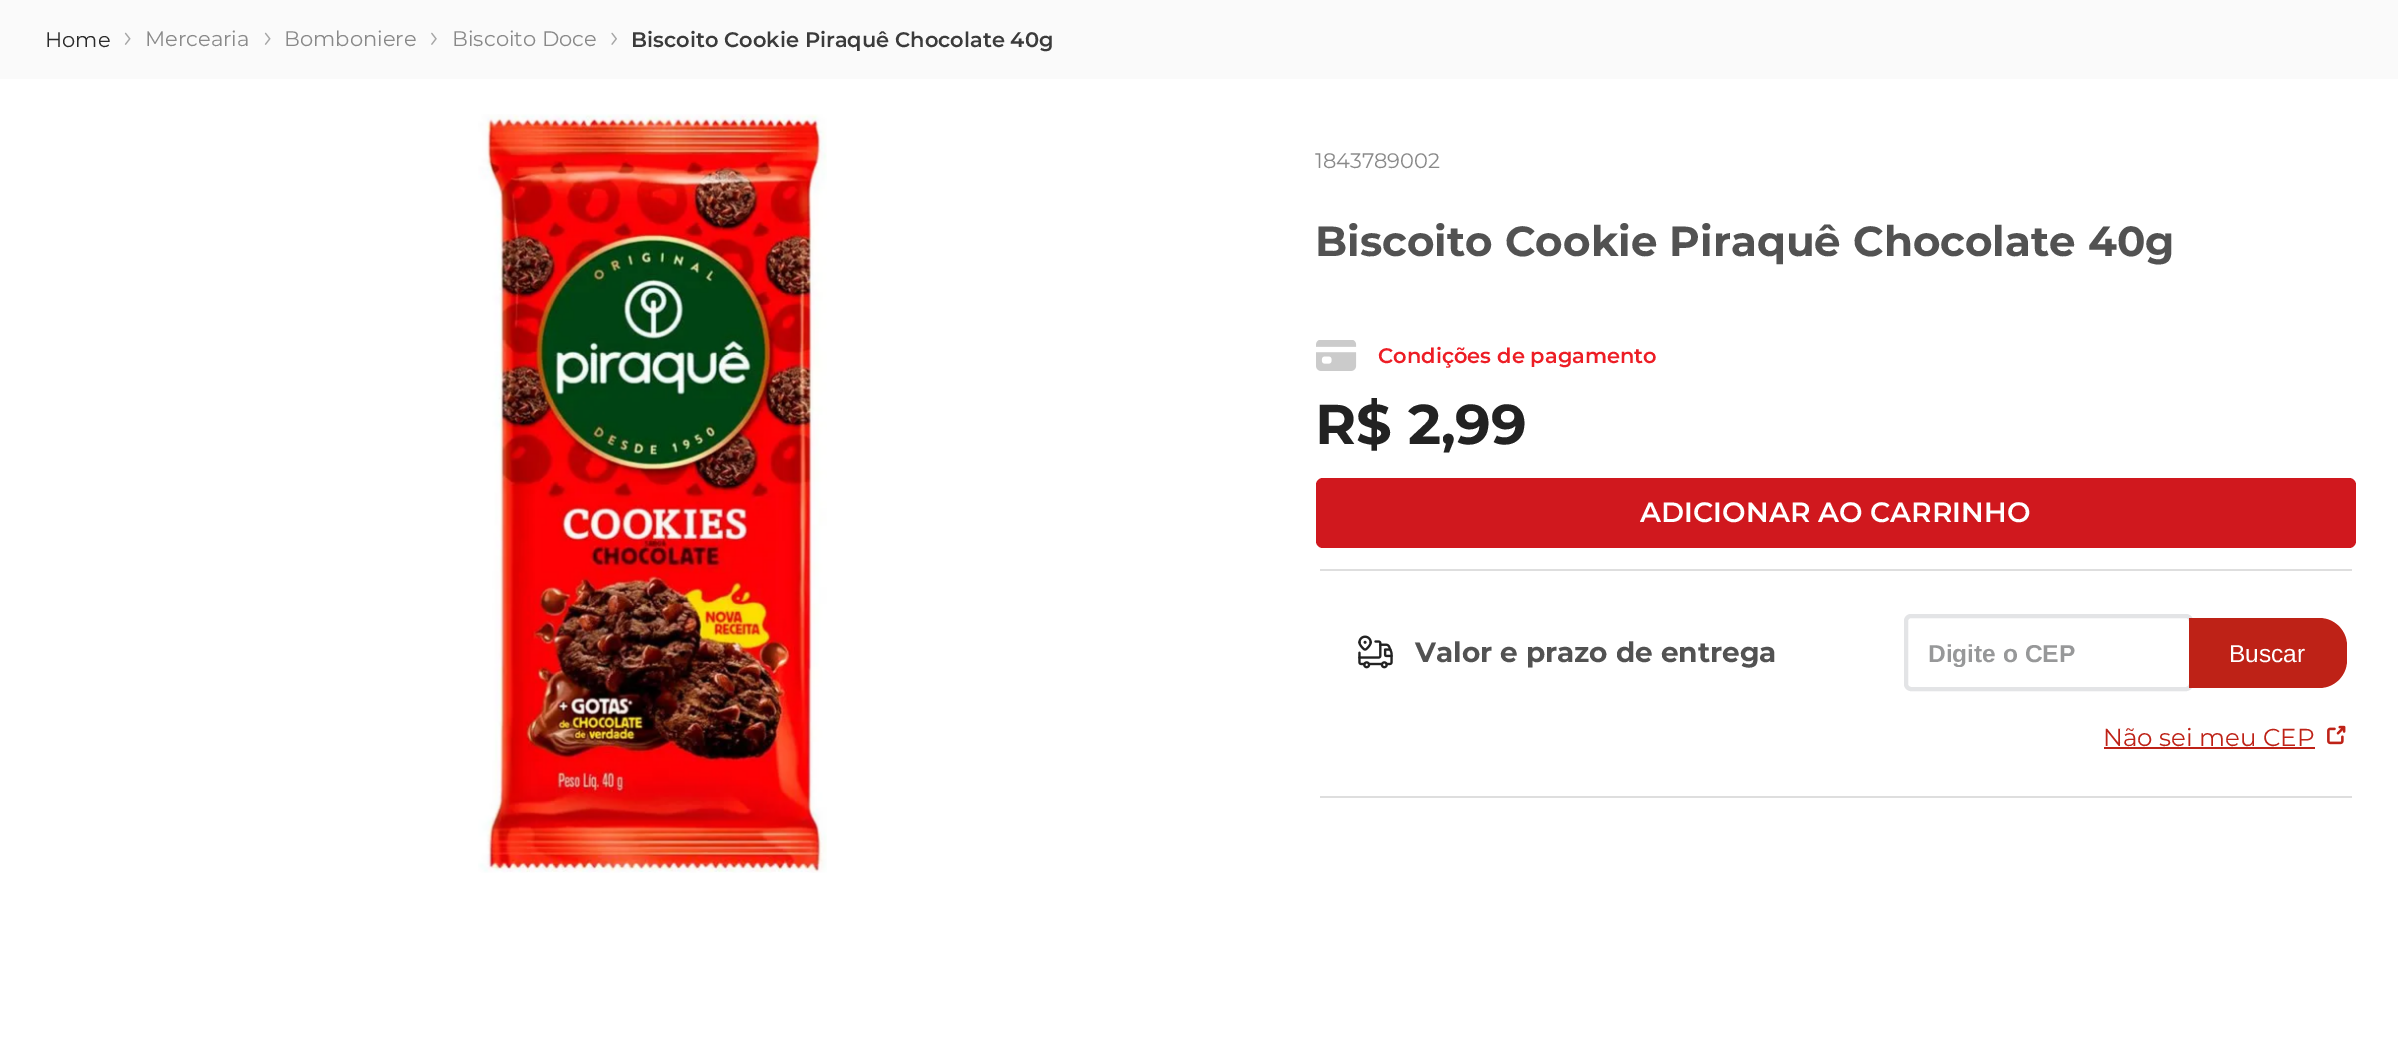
%!PS
<< /PageSize [2398 1055] >> setpagedevice
/rgb { dup -16 bitshift 255 div exch dup -8 bitshift 255 and 255 div exch 255 and 255 div setrgbcolor } def
/font { [ exch dup neg 0 0 3 -1 roll 0 0 ] selectfont } def
/text { moveto show } def
/roundrect { 5 dict begin { /r /h /w /y /x } { exch def } forall
  x r add y moveto x w add y 2 copy h add r arct x w add y h add x 1 index r arct
  x y h add x y r arct x y 2 copy exch w add exch r arct closepath end } def
/picture { 5 dict begin { /h /w /y /x /name } { exch def } forall
  gsave x y translate w h scale
  w h 8 [w 0 0 h 0 0] name (r) file false 3 colorimage grestore end } def
0 1055 translate 1 -1 scale
4 setmiterlimit
/s1 { /Montserrat-Regular 21 font 16#2B2B2B rgb } def
/s2 { /Montserrat-Regular 21 font 16#898989 rgb } def
/s3 { /Montserrat-SemiBold 21 font 16#3B3B3B rgb } def
/s4 { /Montserrat-Bold 42 font 16#525252 rgb } def
/s5 { /Montserrat-SemiBold 21 font 16#ED1D25 rgb } def
/s6 { /Montserrat-Bold 56 font 16#222222 rgb } def
/s7 { /Montserrat-SemiBold 28 font 16#FFFFFF rgb } def
/s8 { /Montserrat-Bold 28 font 16#525252 rgb } def
/s9 { /LiberationSans-Bold 24.5 font 16#979899 rgb } def
/s10 { /LiberationSans-Regular 24.5 font 16#FFFFFF rgb } def
/s11 { /Montserrat-Regular 24.5 font 16#BE2217 rgb } def
16#FAFAFA rgb
0 0 2398 1055 rectfill
s1
(Home) 45 47 text
(pic1.raw) 124 32 7 13 picture
s2
(Mercearia) 145 46 text
(pic1.raw) 264 32 7 13 picture
(Bomboniere) 284 46 text
(pic2.raw) 431 32 6 13 picture
(Biscoito Doce) 452 46 text
(pic3.raw) 611 32 6 13 picture
s3
(Biscoito Cookie Piraquê Chocolate 40g) 631 47 text
16#FFFFFF rgb
0 79 2398 976 rectfill
(pic4.raw) 478 114 349 759 picture
s2
(1843789002) 1315 168 text
s4
(Biscoito Cookie Piraquê Chocolate 40g) 1315 256 text
(pic5.raw) 1316 340 41 31 picture
s5
(Condições de pagamento) 1378 363 text
s6
(R$ 2,99) 1315 444 text
16#D0181E rgb
1316 478 1040 70 7 roundrect fill
s7
(ADICIONAR AO CARRINHO) 1640 522 text
16#DEDEDE rgb
1320 569 1032 2 rectfill
1320 796 1032 2 rectfill
(pic6.raw) 1358 635 35 34 picture
s8
(Valor e prazo de entrega) 1415 662 text
16#E3E4E6 rgb
4 setlinewidth
1906 616 285 73 5 roundrect stroke
gsave
1929 639 239 28 rectclip
s9
(Digite o CEP) 1928 662 text
grestore
16#BE2217 rgb
2189 618 moveto 2319 618 lineto 2334.5 618 2347 630.5 2347 646 curveto 2347 660 lineto 2347 675.5 2334.5 688 2319 688 curveto 2189 688 lineto closepath fill
s10
(Buscar) 2229 662 text
s11
(Não sei meu CEP) 2103 746 text
2104 747 211 2 rectfill
(pic7.raw) 2327 725 19 20 picture
showpage
